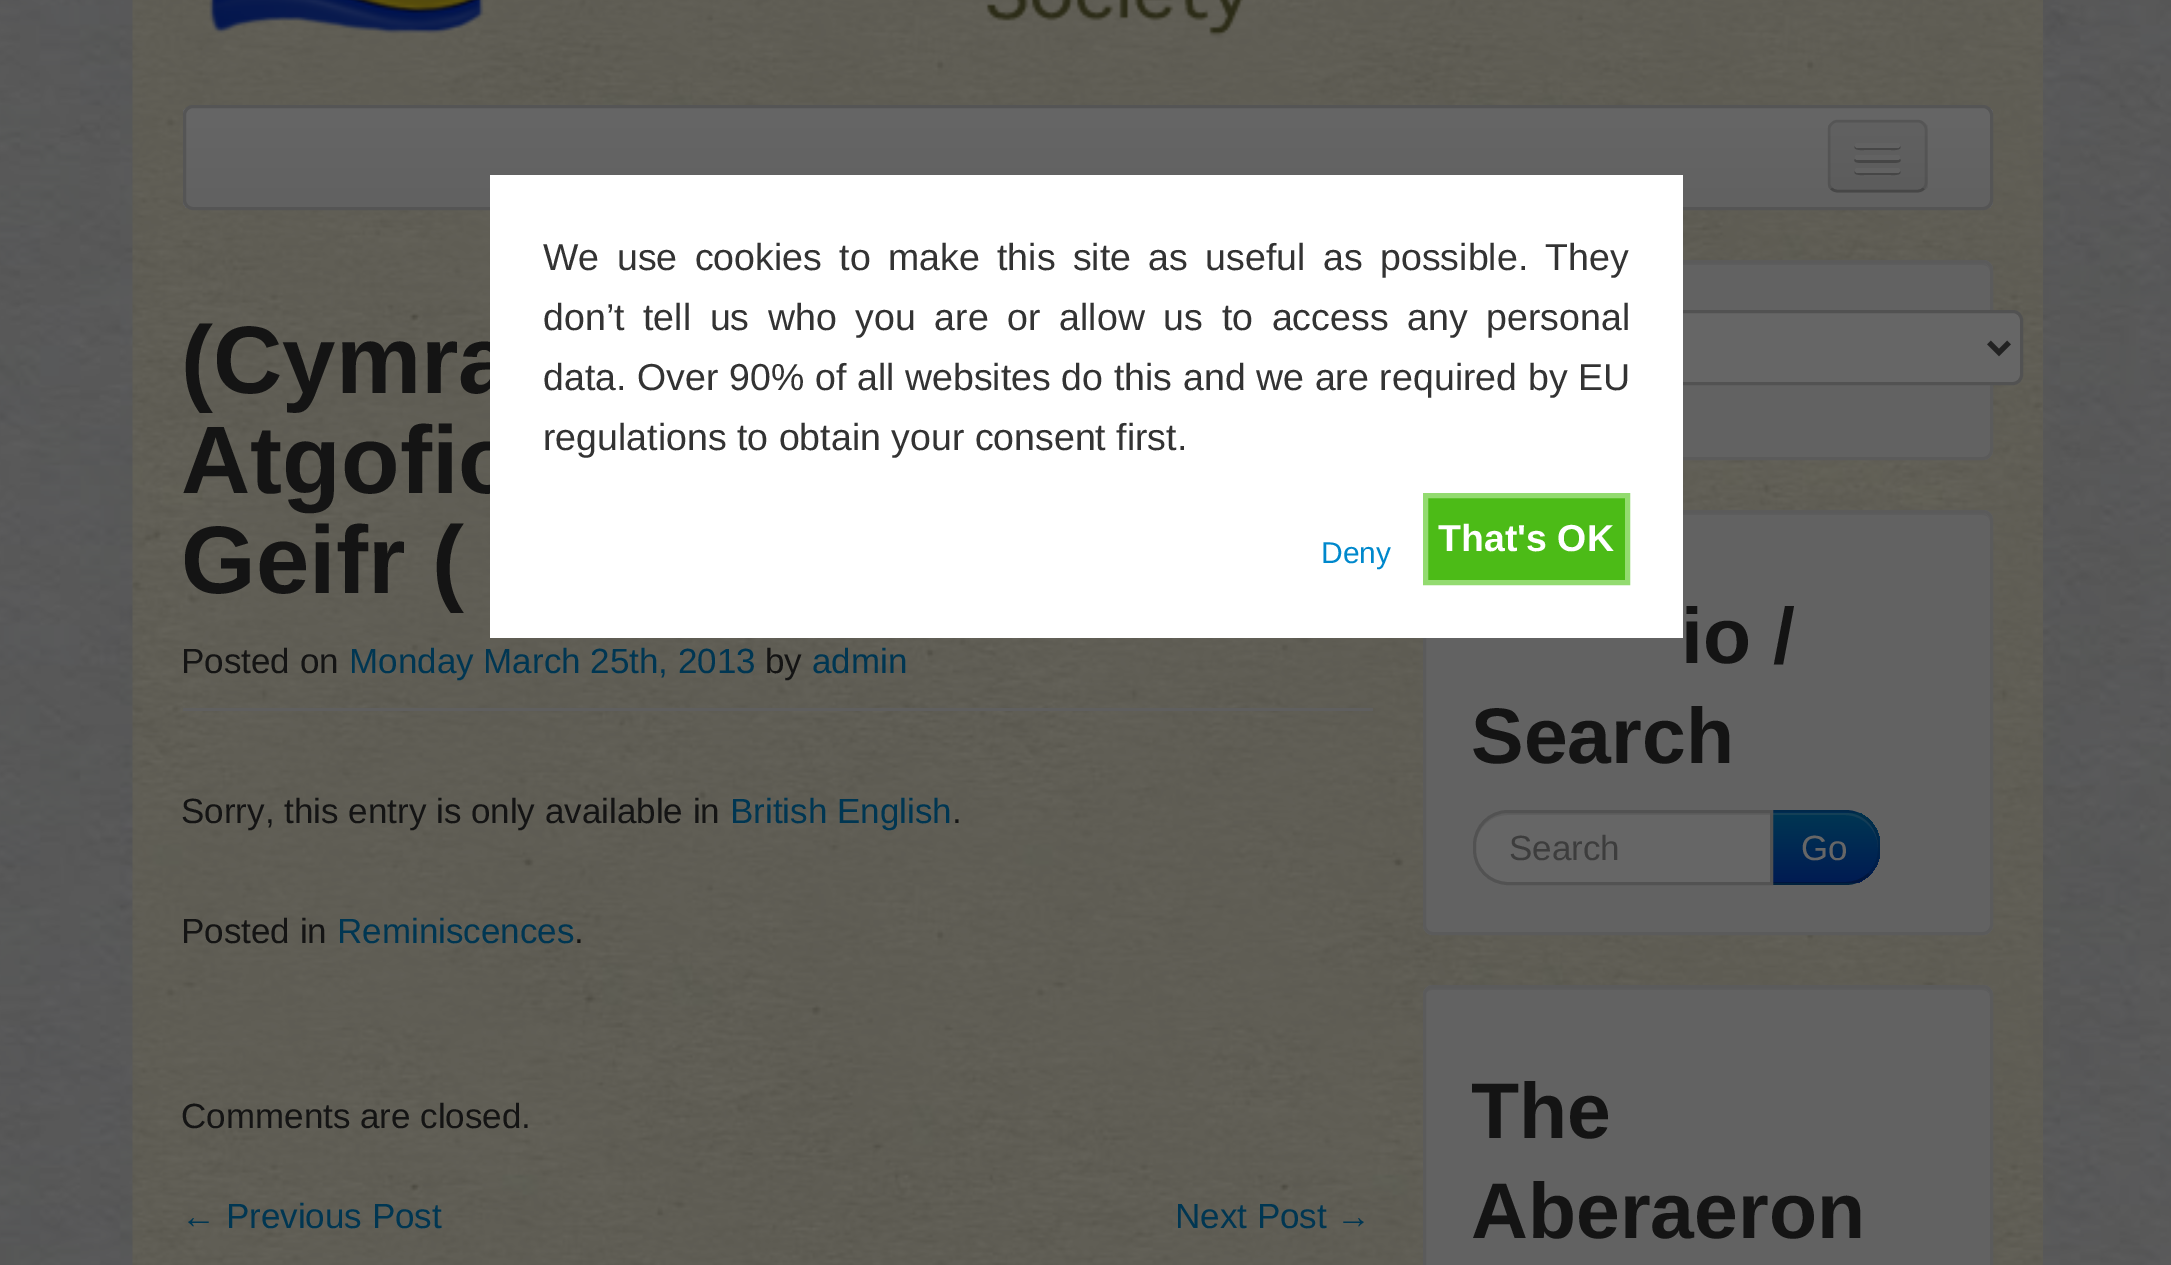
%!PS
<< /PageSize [2171 1265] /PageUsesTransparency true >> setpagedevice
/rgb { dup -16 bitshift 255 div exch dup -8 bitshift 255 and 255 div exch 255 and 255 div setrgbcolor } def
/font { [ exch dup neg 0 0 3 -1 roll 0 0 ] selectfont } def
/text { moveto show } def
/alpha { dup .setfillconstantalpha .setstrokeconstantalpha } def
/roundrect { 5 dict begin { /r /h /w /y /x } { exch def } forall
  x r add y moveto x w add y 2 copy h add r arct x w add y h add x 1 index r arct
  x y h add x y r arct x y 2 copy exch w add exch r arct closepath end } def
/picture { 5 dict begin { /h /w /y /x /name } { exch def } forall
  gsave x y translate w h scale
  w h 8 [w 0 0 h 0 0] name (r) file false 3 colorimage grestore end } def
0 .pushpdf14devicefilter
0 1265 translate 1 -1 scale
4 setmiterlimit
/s1 { /LiberationSans-Bold 96 font 16#141414 rgb } def
/s2 { /LiberationSans-Regular 37.5 font 16#333333 rgb } def
/s3 { /LiberationSans-Bold 37.5 font 16#FFFFFF rgb } def
/s4 { /LiberationSans-Regular 30 font 16#0088CC rgb } def
/s5 { /LiberationSans-Regular 35 font 16#141414 rgb } def
/s6 { /LiberationSans-Regular 35 font 16#003652 rgb } def
/s7 { /LiberationSans-Bold 78.75 font 16#141414 rgb } def
/s8 { /LiberationSans-Regular 35 font 16#3D3D3D rgb } def
/s9 { /LiberationSans-Regular 35 font 16#666666 rgb } def
16#FFFFFF rgb
0 0 2171 1265 rectfill
(pic1.raw) 0 0 2171 1265 picture
16#605E55 rgb
2042 0 1 1265 rectfill
(pic2.raw) 132 0 1911 1265 picture
gsave
183 105 1810 105 10 roundrect clip newpath
gsave 183 108 moveto 1993 108 lineto 1993 208 lineto 183 208 lineto closepath clip newpath
<< /ShadingType 2 /ColorSpace /DeviceRGB /Coords [1088 107 1088 208] /Extend [true true] /Function << /FunctionType 2 /Domain [0 1] /C0 [0.4 0.4 0.4] /C1 [0.38 0.38 0.38] /N 1 >> >> shfill grestore
grestore
16#555555 rgb
3 setlinewidth
184.5 106.5 1807 102 8.5 roundrect stroke
s1
(\(Cymra) 181 393 text
(Atgofio) 181 493 text
16#626262 rgb
1423 260 570 200 10 roundrect fill
16#5D5D5D rgb
1432 265 moveto 1982 265 lineto 1987 265 1990 268 1990 272 curveto 1990 271 lineto 1990 267 1986 263 1982 263 curveto 1433 263 lineto 1429 263 1425 267 1425 271 curveto 1425 272 lineto 1425 268 1428 265 1432 265 curveto closepath fill
16#5B5B5B rgb
1424.5 261.5 567 197 8.5 roundrect stroke
16#666666 rgb
1474.5 311.5 547 72 8.5 roundrect gsave fill grestore
16#525252 rgb
stroke
16#626262 rgb
1423 510 570 425 10 roundrect fill
16#5D5D5D rgb
1432 515 moveto 1982 515 lineto 1987 515 1990 518 1990 522 curveto 1990 521 lineto 1990 517 1986 513 1982 513 curveto 1433 513 lineto 1429 513 1425 517 1425 521 curveto 1425 522 lineto 1425 518 1428 515 1432 515 curveto closepath fill
16#5B5B5B rgb
1424.5 511.5 567 422 8.5 roundrect stroke
16#FFFFFF rgb
490 175 1193 463 rectfill
/LiberationSans-Regular 37.5 font
16#333333 rgb
543 270 moveto 7 0 32 (We use cookies to make this site as useful as possible. They) widthshow
543 330 moveto 8.25 0 32 (don’t tell us who you are or allow us to access any personal) widthshow
543 390 moveto 0.25 0 32 (data. Over 90% of all websites do this and we are required by EU) widthshow
(regulations to obtain your consent first.) 543 450 text
16#4CBB17 rgb
1425.5 495.5 moveto 1627.5 495.5 lineto 1627.5 582.5 lineto 1425.5 582.5 lineto closepath gsave fill grestore
16#93DB70 rgb
5 setlinewidth
stroke
s3
(That's OK) 1438 551 text
s4
(Deny) 1321 563 text
(pic3.raw) 209 0 1035 36 picture
16#5F5F5F rgb
1828 120 100 73 10 roundrect fill
gsave
1828 120 100 73 10 roundrect clip newpath
gsave 1828 123 moveto 1928 123 lineto 1928 190 lineto 1828 190 lineto closepath clip newpath
<< /ShadingType 2 /ColorSpace /DeviceRGB /Coords [1878 123 1878 190] /Extend [true true] /Function << /FunctionType 2 /Domain [0 1] /C0 [0.38 0.38 0.38] /C1 [0.361 0.361 0.361] /N 1 >> >> shfill grestore
grestore
0.25 alpha
16#000000 rgb
2.5 setlinewidth
1923.5 188.5 moveto 1922 190.5 1920 191 1917.5 191 curveto 1837.5 191 lineto 1835 191 1833 190.5 1831.5 188.5 curveto stroke
0.1 alpha
1831.5 188.5 moveto 1829.5 187 1829 185 1829 182.5 curveto 1829 130 lineto 1829 127.5 1829.5 125.5 1831.5 124 curveto 1833 122 1835 121 1837.5 121 curveto 1917.5 121 lineto 1920 121 1922 122 1923.5 124 curveto 1925.5 125.5 1926 127.5 1926 130 curveto 1926 182.5 lineto 1926 185 1925.5 187 1923.5 188.5 curveto stroke
1 alpha
16#474747 rgb
1855 146 moveto 1852 151 1864 150 1864 150 curveto 1891 150 lineto 1891 150 1903 151 1900 146 curveto 1899 147 1898 148 1898 148 curveto 1858 148 lineto 1857 148 1856 147 1855 146 curveto closepath fill
16#626262 rgb
1855 143 45 5 2.5 roundrect fill
16#464646 rgb
1855 159 moveto 1852 163 1860 163 1864 163 curveto 1891 163 lineto 1895 163 1903 163 1900 159 curveto 1898 160 lineto 1857 160 lineto closepath fill
16#626262 rgb
1855 155 45 5 2.5 roundrect fill
16#464646 rgb
1855 171 moveto 1852 176 1864 175 1864 175 curveto 1891 175 lineto 1891 175 1903 176 1900 171 curveto 1899 172 1898 172 1898 172 curveto 1858 172 lineto 1857 172 1856 172 1855 171 curveto closepath fill
16#626262 rgb
1855 168 45 5 2.5 roundrect fill
16#5F5F5F rgb
183 708 1190 3 rectfill
s1
(Geifr \() 181 593 text
s5
(Posted on) 181 673 text
s6
(Monday March 25th, 2013) 349 673 text
s5
(by) 765 673 text
s6
(admin) 812 673 text
s5
(Sorry, this entry is only available in) 181 823 text
s6
(British English) 730 823 text
s5
(.) 952 823 text
(Posted in) 181 943 text
s6
(Reminiscences) 337 943 text
s5
(.) 574 943 text
(Comments are closed.) 181 1128 text
s6
(← Previous Post) 181 1228 text
(Next Post →) 1175 1228 text
16#222222 rgb
5 setlinewidth
1989 342.5 moveto 1999 352.5 lineto 2009 342.5 lineto stroke
s7
(io /) 1681 663 text
(Search) 1471 763 text
16#002C52 rgb
1770 810 moveto 1845 810 lineto 1864.5 810 1880 825.5 1880 845 curveto 1880 850 lineto 1880 869.5 1864.5 885 1845 885 curveto 1770 885 lineto closepath fill
gsave
1770 810 moveto 1845 810 lineto 1864.5 810 1880 825.5 1880 845 curveto 1880 850 lineto 1880 869.5 1864.5 885 1845 885 curveto 1770 885 lineto closepath clip newpath
gsave 1773 813 moveto 1880 813 lineto 1880 883 lineto 1773 883 lineto closepath clip newpath
<< /ShadingType 2 /ColorSpace /DeviceRGB /Coords [1825 813 1825 883] /Extend [true true] /Function << /FunctionType 2 /Domain [0 1] /C0 [0 0.212 0.322] /C1 [0 0.106 0.322] /N 1 >> >> shfill grestore
grestore
0.2 alpha
16#666666 rgb
1773 813 moveto 1773 815 lineto 1845 815 lineto 1863 815 1878 830 1878 848 curveto 1878 829 1865 813 1845 813 curveto closepath fill
0.1 alpha
16#000000 rgb
1770 810 moveto 1772 812 lineto 1845 812 lineto 1854 812 1862 816 1868 822 curveto 1870 820 lineto 1863 814 1854 810 1845 810 curveto closepath fill
1880 850 moveto 1880 838 1878 829 1870 820 curveto 1868 822 lineto 1881 835 1882 860 1868 873 curveto 1870 875 lineto 1876 868 1880 860 1880 850 curveto closepath fill
0.25 alpha
1845 885 moveto 1854 885 1863 881 1870 875 curveto 1868 873 lineto 1862 879 1854 882 1845 882 curveto 1773 882 lineto 1770 885 lineto closepath fill
1 alpha
16#666666 rgb
1508 810 moveto 1773 810 lineto 1773 885 lineto 1508 885 lineto 1488.5 885 1473 869.5 1473 850 curveto 1473 845 lineto 1473 825.5 1488.5 810 1508 810 curveto closepath fill
16#5E5E5E rgb
1508 815 moveto 1770 815 lineto 1770 813 lineto 1508 813 lineto 1501 814 lineto 1483 817 1474 834 1475 852 curveto 1474 834 1486 815 1508 815 curveto closepath fill
16#525252 rgb
3 setlinewidth
1508 811.5 moveto 1771.5 811.5 lineto 1771.5 883.5 lineto 1508 883.5 lineto 1489.5 883.5 1474.5 868.5 1474.5 850 curveto 1474.5 845 lineto 1474.5 826.5 1489.5 811.5 1508 811.5 curveto closepath stroke
s8
(Search) 1509 860 text
s9
(Go) 1801 860 text
16#626262 rgb
1423 985 570 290 10 roundrect fill
16#5D5D5D rgb
1432 990 moveto 1982 990 lineto 1987 990 1990 993 1990 998 curveto 1990 993 1988 988 1982 988 curveto 1433 988 lineto 1427 988 1425 993 1425 998 curveto 1425 993 1428 990 1432 990 curveto closepath fill
16#5B5B5B rgb
1424.5 986.5 567 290 8.5 roundrect stroke
s7
(The) 1471 1138 text
(Aberaeron) 1471 1238 text
.poppdf14devicefilter showpage
